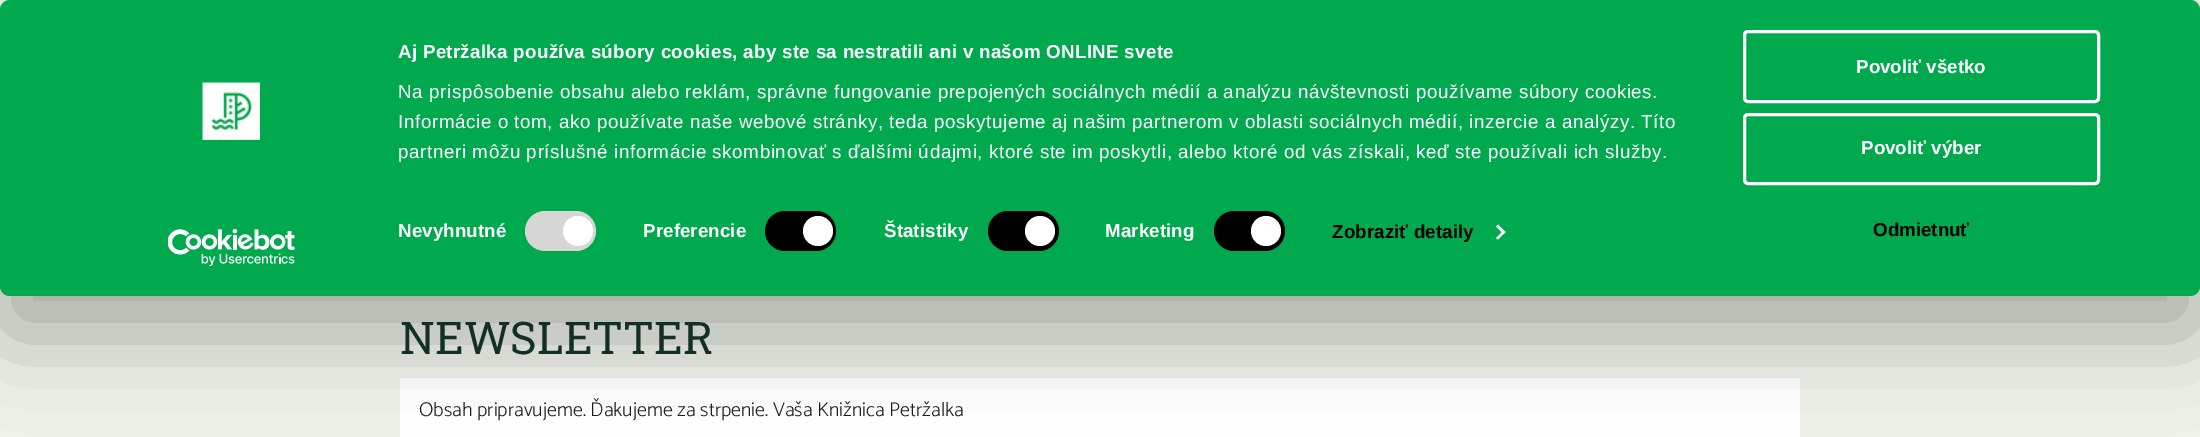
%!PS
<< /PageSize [2200 437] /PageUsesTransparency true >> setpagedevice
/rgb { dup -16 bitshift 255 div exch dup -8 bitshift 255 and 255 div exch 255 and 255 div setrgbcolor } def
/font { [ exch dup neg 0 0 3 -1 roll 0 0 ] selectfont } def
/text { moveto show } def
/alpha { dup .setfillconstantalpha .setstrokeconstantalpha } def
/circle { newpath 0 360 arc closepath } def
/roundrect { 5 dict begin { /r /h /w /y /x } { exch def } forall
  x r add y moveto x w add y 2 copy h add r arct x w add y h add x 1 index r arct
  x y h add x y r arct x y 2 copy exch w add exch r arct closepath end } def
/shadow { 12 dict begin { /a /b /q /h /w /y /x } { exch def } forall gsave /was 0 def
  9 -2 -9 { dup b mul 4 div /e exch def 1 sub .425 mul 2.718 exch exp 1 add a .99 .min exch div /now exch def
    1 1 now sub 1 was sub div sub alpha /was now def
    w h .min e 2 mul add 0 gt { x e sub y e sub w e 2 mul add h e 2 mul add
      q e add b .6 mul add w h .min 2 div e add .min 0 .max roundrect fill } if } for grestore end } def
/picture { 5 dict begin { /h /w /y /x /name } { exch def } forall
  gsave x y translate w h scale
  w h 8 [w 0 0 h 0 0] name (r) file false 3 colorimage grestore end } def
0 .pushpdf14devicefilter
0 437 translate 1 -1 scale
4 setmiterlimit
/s1 { /LiberationSans-Bold 18.75 font 16#FFFFFF rgb } def
/s2 { /LiberationSans-Bold 18.75 font 16#000000 rgb } def
/s3 { /RobotoSlab-Regular 45 font 16#133027 rgb } def
/s4 { /Catamaran-Light 20 font 16#1B1F1F rgb } def
16#EDF1E8 rgb
0 0 2200 437 rectfill
16#FFFFFF rgb
400 378 1400 59 rectfill
16#000000 rgb
0 38 2200 296 10 44 0.3 shadow
16#00A84E rgb
0 0 2200 296 10 roundrect fill
(pic1.raw) 202 82 58 58 picture
(pic2.raw) 168 229 127 37 picture
/LiberationSans-Bold 18.75 font
16#FFFFFF rgb
398 58 moveto 0.3 0 (Aj Petržalka používa súbory cookies, aby ste sa nestratili ani v našom ONLINE svete) ashow
/LiberationSans-Regular 18.75 font
398 98 moveto 0.62 0 (Na prispôsobenie obsahu alebo reklám, správne fungovanie prepojených sociálnych médií a analýzu návštevnosti používame súbory cookies.) ashow
398 128 moveto 0.62 0 (Informácie o tom, ako používate naše webové stránky, teda poskytujeme aj našim partnerom v oblasti sociálnych médií, inzercie a analýzy. Títo) ashow
398 158 moveto 0.62 0 (partneri môžu príslušné informácie skombinovať s ďalšími údajmi, ktoré ste im poskytli, alebo ktoré od vás získali, keď ste používali ich služby.) ashow
/LiberationSans-Bold 18.75 font
398 237 moveto 0.1 0 (Nevyhnutné) ashow
16#D6D6D6 rgb
525 211 71 40 20 roundrect fill
16#FFFFFF rgb
578 231 15 circle fill
643 237 moveto 0.1 0 (Preferencie) ashow
16#000000 rgb
765 211 71 40 20 roundrect fill
16#FFFFFF rgb
818 231 15 circle fill
884 237 moveto 0.1 0 (Štatistiky) ashow
16#000000 rgb
988 211 71 40 20 roundrect fill
16#FFFFFF rgb
1040 231 15 circle fill
1105 237 moveto 0.1 0 (Marketing) ashow
16#000000 rgb
1214 211 71 40 20 roundrect fill
16#FFFFFF rgb
1266 231 15 circle fill
16#000000 rgb
1332 238 moveto 0.1 0 (Zobraziť detaily) ashow
16#FFFFFF rgb
1498 224.5 moveto 1505.5 232 lineto 1503.5 234 lineto 1496 226.5 lineto closepath fill
1503.5 230.5 moveto 1505.5 232 lineto 1498 239.5 lineto 1496 238 lineto closepath fill
3 setlinewidth
1744.5 31.5 354 70 3.5 roundrect stroke
(Povoliť všetko) 1856 73 text
1744.5 114.5 354 69 3.5 roundrect stroke
(Povoliť výber) 1861 154 text
s2
(Odmietnuť) 1873 236 text
s3
(NEWSLETTER) 400 354 text
s4
(Obsah pripravujeme. Ďakujeme za strpenie. Vaša Knižnica Petržalka) 419 416 text
.poppdf14devicefilter showpage
